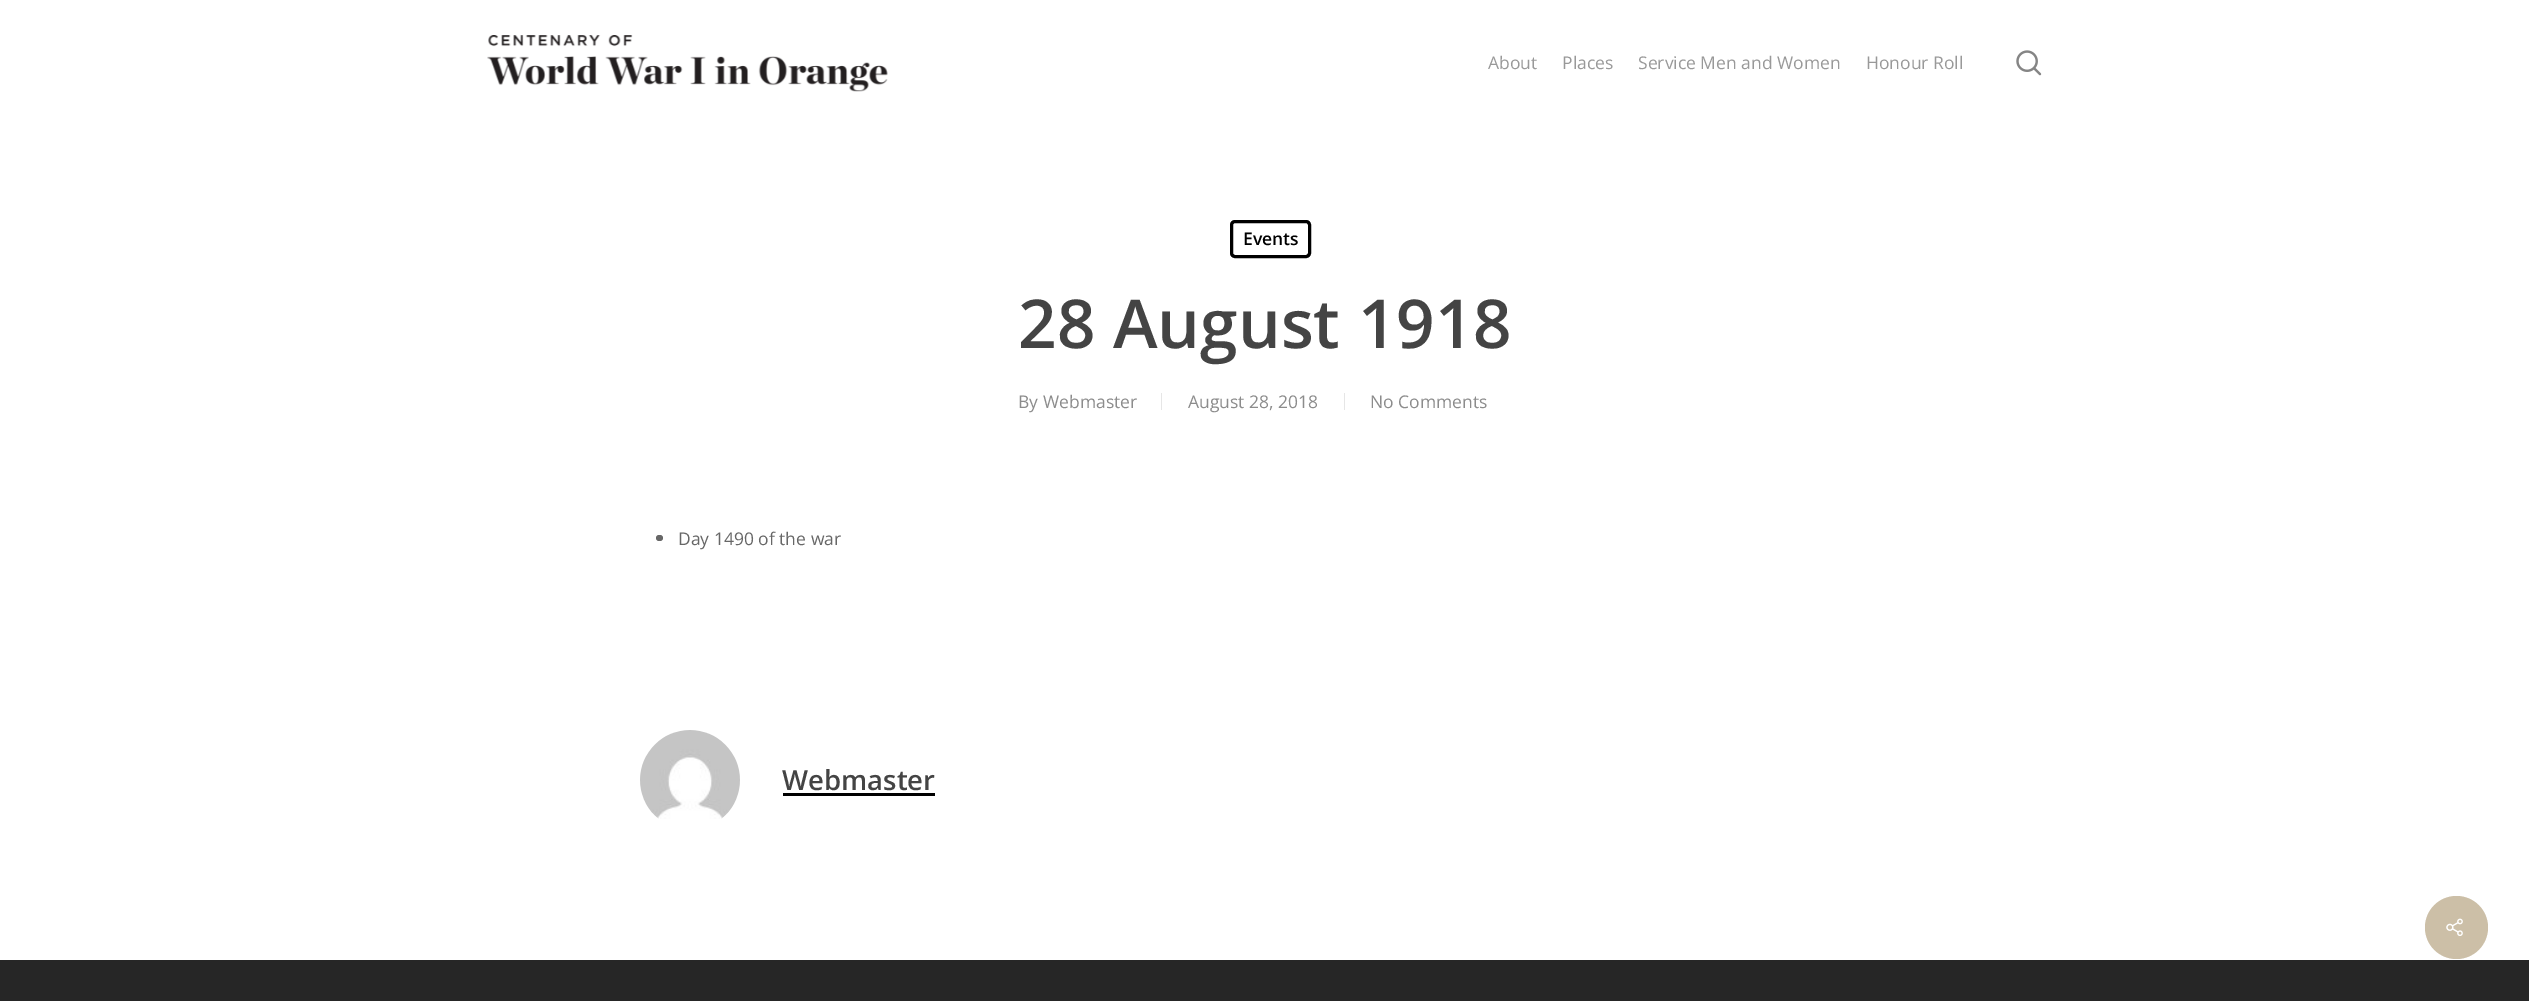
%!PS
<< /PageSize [2529 1001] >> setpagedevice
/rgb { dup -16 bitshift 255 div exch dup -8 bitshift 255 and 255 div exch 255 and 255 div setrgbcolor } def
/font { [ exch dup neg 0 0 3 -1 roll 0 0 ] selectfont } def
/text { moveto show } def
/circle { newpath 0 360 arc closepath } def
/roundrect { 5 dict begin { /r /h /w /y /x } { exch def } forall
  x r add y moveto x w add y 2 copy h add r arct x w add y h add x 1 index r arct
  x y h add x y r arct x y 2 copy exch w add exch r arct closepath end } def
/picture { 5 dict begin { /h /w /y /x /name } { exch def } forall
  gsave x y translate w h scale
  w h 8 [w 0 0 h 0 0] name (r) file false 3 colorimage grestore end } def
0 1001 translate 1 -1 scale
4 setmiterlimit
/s1 { /OpenSans-Regular 17.5 font 16#999999 rgb } def
/s2 { /OpenSans-SemiBold 17.5 font 16#000000 rgb } def
/s3 { /OpenSans-SemiBold 67.5 font 16#444444 rgb } def
/s4 { /OpenSans-Regular 17.5 font 16#8C8C8C rgb } def
/s5 { /OpenSans-Regular 17.5 font 16#676767 rgb } def
/s6 { /OpenSans-SemiBold 27.5 font 16#444444 rgb } def
16#FFFFFF rgb
0 0 2529 1001 rectfill
(pic1.raw) 487 35 401 57 picture
s1
(About) 1488 69 text
(Places) 1562 69 text
(Service Men and Women) 1638 69 text
(Honour Roll) 1866 69 text
(pic2.raw) 2016 50 26 26 picture
16#000000 rgb
3 setlinewidth
1231.5 221.5 78 35 3.5 roundrect stroke
s2
(Events) 1243 245 text
s3
(28 August 1918) 1018 348 text
s4
(By) 1018 408 text
(Webmaster) 1043 408 text
16#E6E6E6 rgb
1161 393 1 17 rectfill
s4
(August 28, 2018) 1188 408 text
16#E6E6E6 rgb
1344 393 1 17 rectfill
s4
(No Comments) 1370 408 text
16#676767 rgb
656 535 7 6 3 roundrect fill
(Day 1490 of the war) 678 545 text
(pic3.raw) 640 730 100 89 picture
s6
(Webmaster) 782 790 text
16#000000 rgb
783 793 152 3 rectfill
16#262626 rgb
0 960 2529 41 rectfill
16#CCBFA7 rgb
2456.5 927.5 31.5 circle fill
(pic4.raw) 2446 918 17 18 picture
showpage
